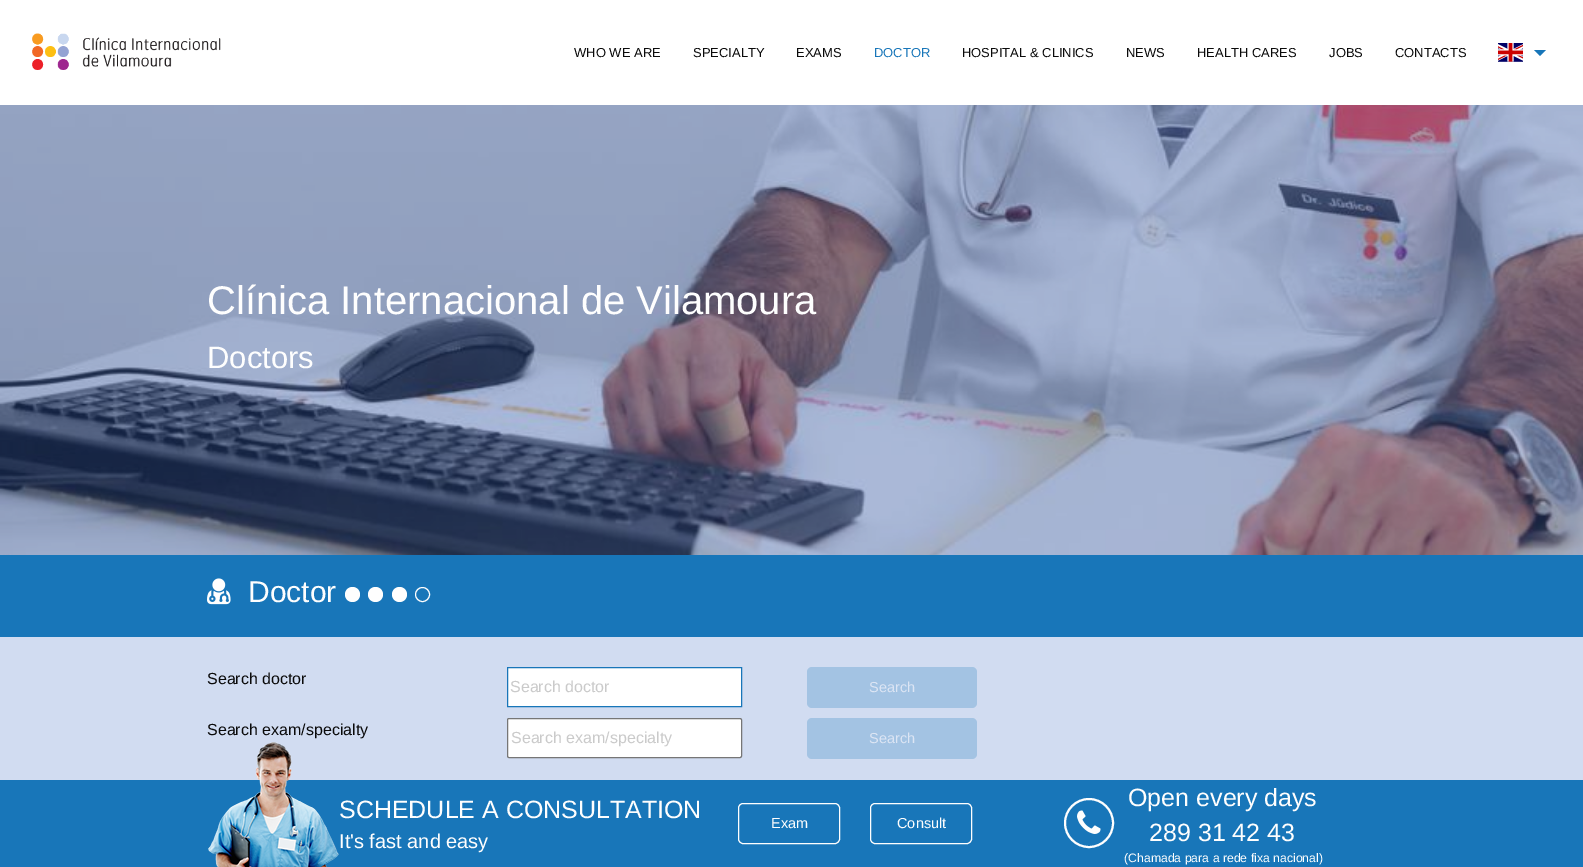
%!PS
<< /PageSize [1583 867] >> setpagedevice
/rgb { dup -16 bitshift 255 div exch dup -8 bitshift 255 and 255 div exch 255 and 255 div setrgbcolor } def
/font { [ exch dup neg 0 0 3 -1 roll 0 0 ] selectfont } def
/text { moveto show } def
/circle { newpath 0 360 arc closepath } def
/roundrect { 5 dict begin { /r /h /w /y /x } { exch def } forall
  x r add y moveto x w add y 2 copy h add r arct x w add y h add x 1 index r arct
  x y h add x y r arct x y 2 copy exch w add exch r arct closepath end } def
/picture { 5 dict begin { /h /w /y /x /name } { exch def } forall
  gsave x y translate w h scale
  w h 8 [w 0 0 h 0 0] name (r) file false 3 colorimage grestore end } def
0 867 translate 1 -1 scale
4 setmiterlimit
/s1 { /LiberationSans-Regular 13 font 16#0A0A0A rgb } def
/s2 { /LiberationSans-Regular 13 font 16#1876B9 rgb } def
/s3 { /LiberationSans-Regular 40 font 16#FEFEFE rgb } def
/s4 { /LiberationSans-Regular 31 font 16#FEFEFE rgb } def
/s5 { /LiberationSans-Regular 30 font 16#FEFEFE rgb } def
/s6 { /LiberationSans-Regular 16 font 16#0A0A0A rgb } def
/s7 { /LiberationSans-Regular 16 font 16#CACACA rgb } def
/s8 { /LiberationSans-Regular 14.5 font 16#DCE5F4 rgb } def
/s9 { /LiberationSans-Regular 25 font 16#FEFEFE rgb } def
/s10 { /LiberationSans-Regular 20 font 16#FEFEFE rgb } def
/s11 { /LiberationSans-Regular 14.5 font 16#FEFEFE rgb } def
/s12 { /LiberationSans-Regular 12.25 font 16#FEFEFE rgb } def
16#FFFFFF rgb
0 0 1583 867 rectfill
(pic1.raw) 32 33 189 37 picture
s1
(WHO WE ARE) 574 57 text
(SPECIALTY) 693 57 text
(EXAMS) 796 57 text
s2
(DOCTOR) 874 57 text
s1
(HOSPITAL & CLINICS) 962 57 text
(NEWS) 1126 57 text
(HEALTH CARES) 1197 57 text
(JOBS) 1329 57 text
(CONTACTS) 1395 57 text
(pic2.raw) 1498 43 25 19 picture
16#1876B9 rgb
1534 50 moveto 1546 50 lineto 1540 56 lineto closepath fill
(pic3.raw) 0 105 1583 450 picture
s3
(Clínica Internacional de Vilamoura) 207 314 text
s4
(Doctors) 207 368 text
16#1876B9 rgb
0 555 1583 82 rectfill
(pic4.raw) 207 578 24 27 picture
s5
(Doctor) 248 602 text
352.5 594.5 7.5 circle fill
375.5 594.5 7.5 circle fill
399.5 594.5 7.5 circle fill
422.5 594.5 7 circle stroke
16#D1DCF1 rgb
0 637 1583 143 rectfill
s6
(Search doctor) 207 684 text
16#FFFFFF rgb
507.5 667.5 moveto 741.5 667.5 lineto 741.5 706.5 lineto 507.5 706.5 lineto closepath gsave fill grestore
16#1876B9 rgb
stroke
s7
(Search doctor) 510 692 text
16#A3C3E3 rgb
807 667 170 41 5 roundrect fill
s8
(Search) 869 692 text
s6
(Search exam/specialty) 207 735 text
16#FFFFFF rgb
507.5 718.5 234 39 1.5 roundrect gsave fill grestore
16#767676 rgb
stroke
s7
(Search exam/specialty) 511 743 text
16#A3C3E3 rgb
807 718 170 41 5 roundrect fill
s8
(Search) 869 743 text
16#1876B9 rgb
0 780 1583 87 rectfill
(pic5.raw) 208 742 131 125 picture
s9
(SCHEDULE A CONSULTATION) 339 818 text
s10
(It's fast and easy) 339 848 text
738.5 803.5 101 40 4.5 roundrect stroke
s11
(Exam) 771 828 text
870.5 803.5 101 40 4.5 roundrect stroke
(Consult) 897 828 text
2 setlinewidth
1089 823 24 circle stroke
(pic6.raw) 1077 810 24 24 picture
s9
(Open every days) 1128 806 text
(289 31 42 43) 1149 841 text
s12
(\(Chamada para a rede fixa nacional\)) 1124 862 text
showpage
